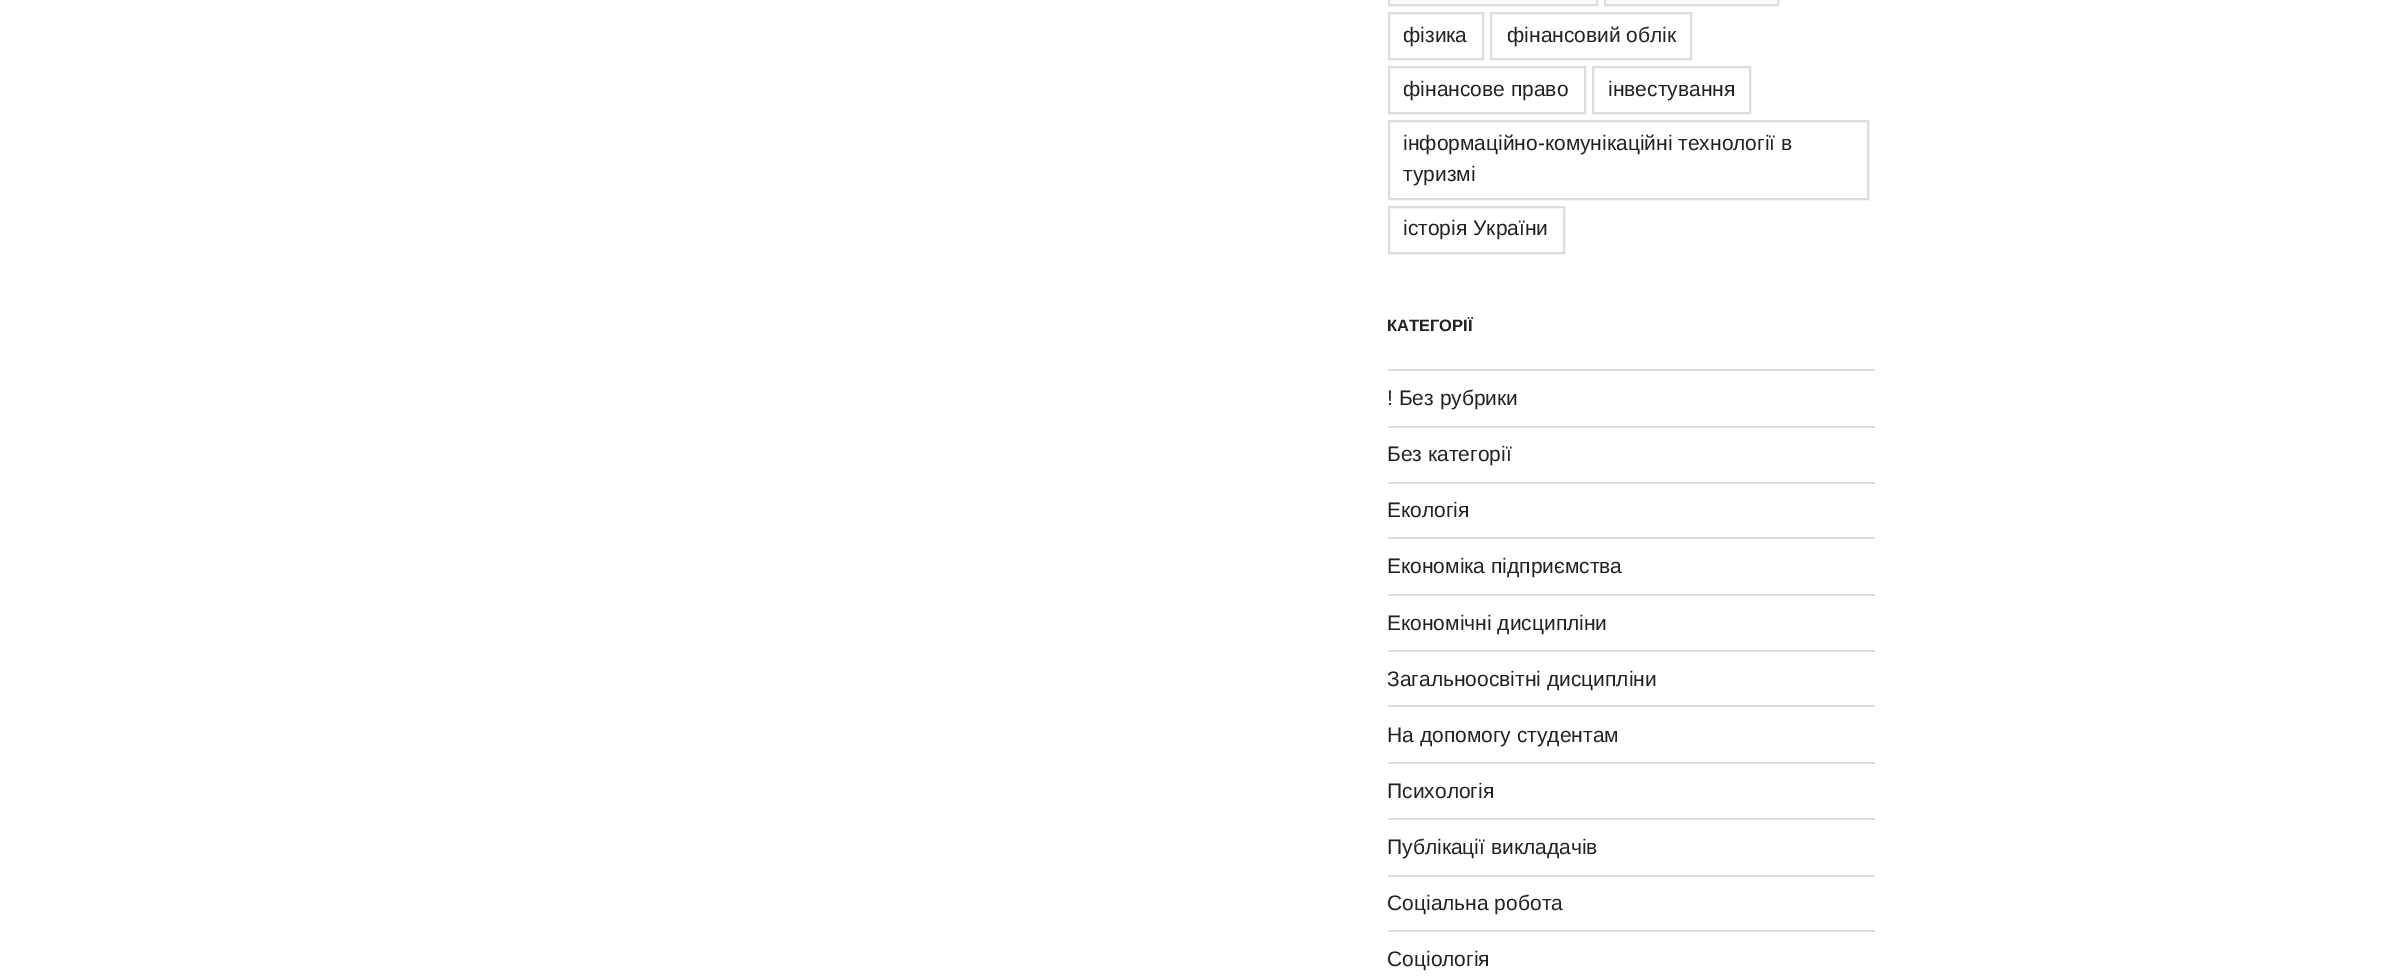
%!PS
<< /PageSize [2393 976] >> setpagedevice
/rgb { dup -16 bitshift 255 div exch dup -8 bitshift 255 and 255 div exch 255 and 255 div setrgbcolor } def
/font { [ exch dup neg 0 0 3 -1 roll 0 0 ] selectfont } def
/text { moveto show } def
0 976 translate 1 -1 scale
4 setmiterlimit
/s1 { /LiberationSans-Regular 21 font 16#222222 rgb } def
/s2 { /LiberationSans-Bold 16.5 font 16#222222 rgb } def
16#FFFFFF rgb
0 0 2393 976 rectfill
16#DDDDDD rgb
2 setlinewidth
1389 -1 208 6 rectstroke
1605 -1 173 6 rectstroke
1389 13 94 46 rectstroke
s1
(фізика) 1403 42 text
16#DDDDDD rgb
1491 13 200 46 rectstroke
s1
(фінансовий облік) 1507 42 text
16#DDDDDD rgb
1389 67 196 46 rectstroke
s1
(фінансове право) 1403 96 text
16#DDDDDD rgb
1593 67 157 46 rectstroke
s1
(інвестування) 1608 96 text
16#DDDDDD rgb
1389 121 479 78 rectstroke
s1
(інформаційно-комунікаційні технології в) 1403 150 text
(туризмі) 1403 181 text
16#DDDDDD rgb
1389 207 175 46 rectstroke
s1
(історія України) 1403 235 text
s2
(КАТЕГОРІЇ) 1387 331 text
16#DDDDDD rgb
1388 369 487 2 rectfill
1388 426 487 2 rectfill
s1
(! Без рубрики) 1387 405 text
16#DDDDDD rgb
1388 482 487 2 rectfill
s1
(Без категорії) 1387 461 text
16#DDDDDD rgb
1388 537 487 2 rectfill
s1
(Екологія) 1387 517 text
16#DDDDDD rgb
1388 594 487 2 rectfill
s1
(Економіка підприємства) 1387 573 text
16#DDDDDD rgb
1388 650 487 2 rectfill
s1
(Економічні дисципліни) 1387 630 text
16#DDDDDD rgb
1388 705 487 2 rectfill
s1
(Загальноосвітні дисципліни) 1387 686 text
16#DDDDDD rgb
1388 762 487 2 rectfill
s1
(На допомогу студентам) 1387 742 text
16#DDDDDD rgb
1388 818 487 2 rectfill
s1
(Психологія) 1387 798 text
16#DDDDDD rgb
1388 875 487 2 rectfill
s1
(Публікації викладачів) 1387 854 text
16#DDDDDD rgb
1388 930 487 2 rectfill
s1
(Соціальна робота) 1387 910 text
(Соціологія) 1387 966 text
showpage
